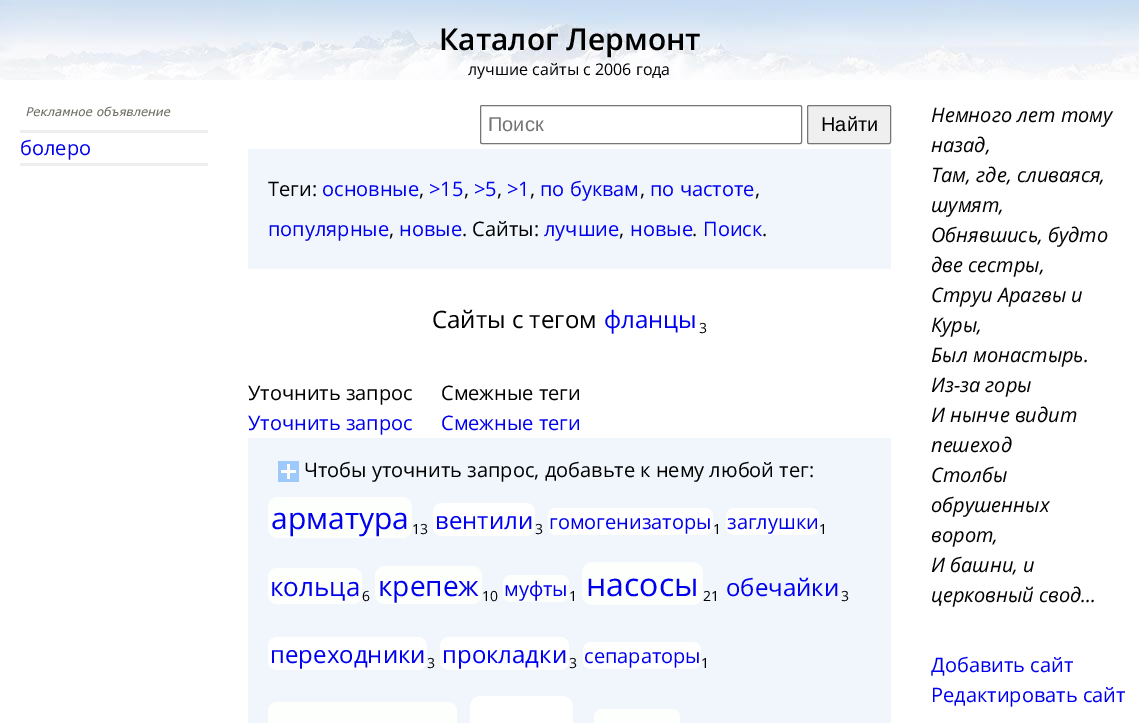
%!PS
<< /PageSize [1139 723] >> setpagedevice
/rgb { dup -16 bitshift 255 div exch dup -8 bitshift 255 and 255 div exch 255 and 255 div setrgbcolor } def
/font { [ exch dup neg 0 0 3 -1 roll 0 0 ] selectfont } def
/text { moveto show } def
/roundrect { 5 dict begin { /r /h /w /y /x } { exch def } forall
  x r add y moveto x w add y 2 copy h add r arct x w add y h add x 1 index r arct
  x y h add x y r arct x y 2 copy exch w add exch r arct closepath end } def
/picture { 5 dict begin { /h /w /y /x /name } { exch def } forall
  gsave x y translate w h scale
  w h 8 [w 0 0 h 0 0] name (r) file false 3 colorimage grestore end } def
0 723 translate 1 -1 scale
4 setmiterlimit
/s1 { /OpenSans-SemiBold 30 font 16#000000 rgb } def
/s2 { /OpenSans-Regular 16 font 16#000000 rgb } def
/s3 { /OpenSans-Regular 20 font 16#0000EE rgb } def
/s4 { /LiberationSans-Regular 20 font 16#757575 rgb } def
/s5 { /LiberationSans-Regular 20 font 16#000000 rgb } def
/s6 { /OpenSans-Regular 20 font 16#000000 rgb } def
/s7 { /OpenSans-Regular 24 font 16#000000 rgb } def
/s8 { /OpenSans-Regular 24 font 16#0000EE rgb } def
/s9 { /OpenSans-Regular 14 font 16#000000 rgb } def
/s10 { /OpenSans-Regular 30 font 16#0000EE rgb } def
/s11 { /OpenSans-Regular 26 font 16#0000EE rgb } def
/s12 { /OpenSans-Regular 28 font 16#0000EE rgb } def
/s13 { /OpenSans-Regular 32 font 16#0000EE rgb } def
/s14 { /OpenSans-Italic 20 font 16#000000 rgb } def
16#FFFFFF rgb
0 0 1139 723 rectfill
(pic1.raw) 0 0 1139 80 picture
s1
(Каталог Лермонт) 439 50 text
s2
(лучшие сайты с 2006 года) 468 75 text
(pic2.raw) 26 106 145 11 picture
16#EEEEEE rgb
20 130 188 3 rectfill
20 163 188 3 rectfill
s3
(болеро) 20 155 text
16#767676 rgb
480.5 105.5 321 38 1.5 roundrect stroke
s4
(Поиск) 488 131 text
16#EFEFEF rgb
807.5 105.5 83 38 1.5 roundrect gsave fill grestore
16#767676 rgb
stroke
s5
(Найти) 821 131 text
16#F1F6FC rgb
248 149 643 120 rectfill
s6
(Теги:) 268 196 text
s3
(основные) 322 196 text
s6
(,) 419 196 text
s3
(>15) 429 196 text
s6
(,) 464 196 text
s3
(>5) 474 196 text
s6
(,) 497 196 text
s3
(>1) 507 196 text
s6
(,) 530 196 text
s3
(по буквам) 540 196 text
s6
(,) 640 196 text
s3
(по частоте) 650 196 text
s6
(,) 755 196 text
s3
(популярные) 268 236 text
s6
(,) 389 236 text
s3
(новые) 399 236 text
s6
(. Сайты:) 462 236 text
s3
(лучшие) 544 236 text
s6
(,) 619 236 text
s3
(новые) 630 236 text
s6
(.) 692 236 text
s3
(Поиск) 703 236 text
s6
(.) 762 236 text
s7
(Сайты с тегом) 432 328 text
s8
(фланцы) 604 328 text
s9
(3) 699 333 text
s6
(Уточнить запрос) 248 400 text
s3
(Уточнить запрос) 248 430 text
s6
(Смежные теги) 441 400 text
s3
(Смежные теги) 441 430 text
16#F1F6FC rgb
248 438 643 285 rectfill
(pic3.raw) 278 461 21 21 picture
s6
(Чтобы уточнить запрос, добавьте к нему любой тег:) 304 477 text
16#FCFFFC rgb
268 497 144 41 10 roundrect fill
s10
(арматура) 271 529 text
s9
(13) 412 534 text
16#FEFFFE rgb
433 503 102 33 9 roundrect fill
s8
(вентили) 435 529 text
s9
(3) 535 534 text
16#FEFFFE rgb
548 508 165 27 8 roundrect fill
s3
(гомогенизаторы) 549 529 text
s9
(1) 713 534 text
16#FEFFFE rgb
726 508 93 27 8 roundrect fill
s3
(заглушки) 727 529 text
s9
(1) 819 534 text
16#FDFFFD rgb
268 568 94 36 9 roundrect fill
s11
(кольца) 270 596 text
s9
(6) 362 601 text
16#FCFFFC rgb
375 566 107 38 10 roundrect fill
s12
(крепеж) 378 596 text
s9
(10) 482 601 text
16#FDFFFD rgb
503 575 66 27 8 roundrect fill
s3
(муфты) 504 596 text
s9
(1) 569 601 text
16#FDFFFD rgb
582 562 121 43 11 roundrect fill
s13
(насосы) 586 596 text
s9
(21) 703 601 text
s8
(обечайки) 726 596 text
s9
(3) 841 601 text
16#FEFFFE rgb
268 637 159 33 9 roundrect fill
s8
(переходники) 270 663 text
s9
(3) 427 668 text
16#FDFFFD rgb
268 702 189 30 9 roundrect fill
16#FEFFFE rgb
440 637 129 33 9 roundrect fill
s8
(прокладки) 442 663 text
s9
(3) 569 668 text
16#FEFFFE rgb
470 696 103 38 11 roundrect fill
583 642 118 27 8 roundrect fill
s3
(сепараторы) 584 663 text
16#FDFFFD rgb
594 709 86 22 8 roundrect fill
s9
(1) 701 668 text
s14
(Немного лет тому) 931 122 text
(назад,) 931 152 text
(Там, где, сливаяся,) 931 182 text
(шумят,) 931 212 text
(Обнявшись, будто) 931 242 text
(две сестры,) 931 272 text
(Струи Арагвы и) 931 302 text
(Куры,) 931 332 text
(Был монастырь.) 931 362 text
(Из-за горы) 931 392 text
(И нынче видит) 931 422 text
(пешеход) 931 452 text
(Столбы) 931 482 text
(обрушенных) 931 512 text
(ворот,) 931 542 text
(И башни, и) 931 572 text
(церковный свод...) 931 602 text
s3
(Добавить сайт) 931 672 text
(Редактировать сайт) 931 702 text
showpage
